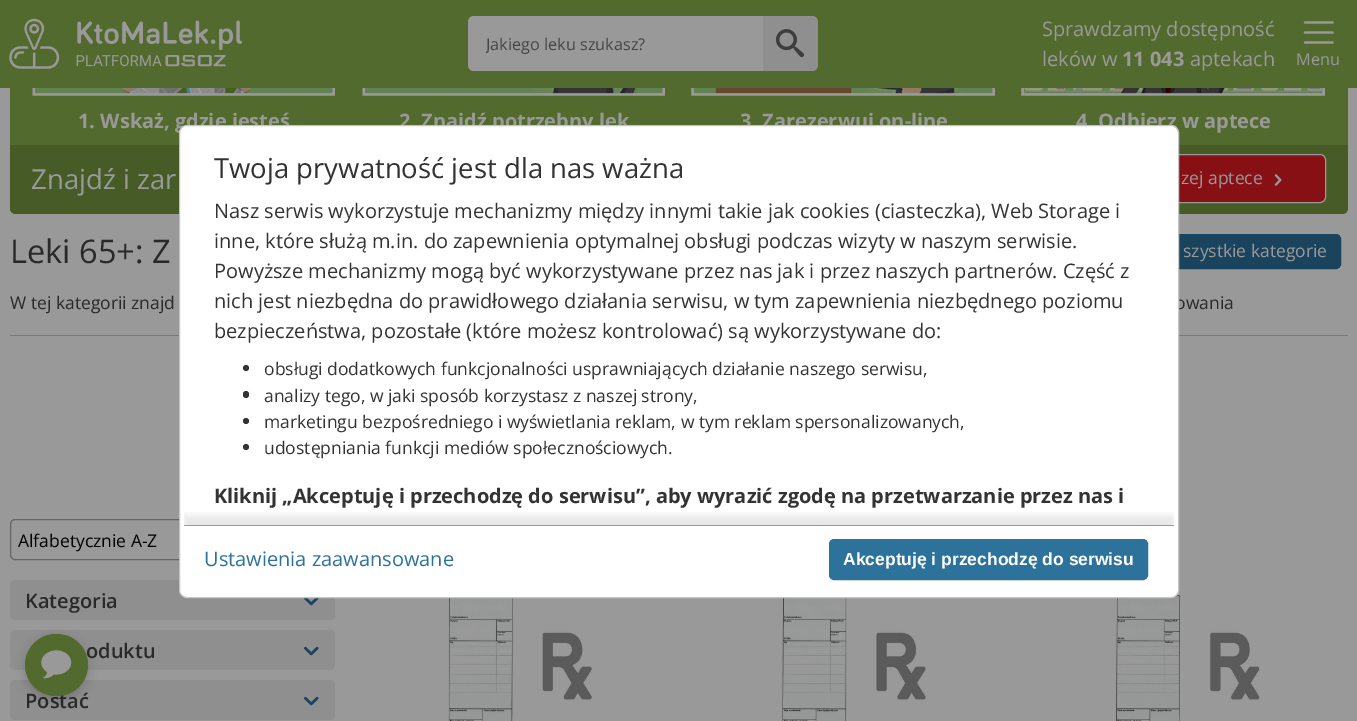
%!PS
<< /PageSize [1357 721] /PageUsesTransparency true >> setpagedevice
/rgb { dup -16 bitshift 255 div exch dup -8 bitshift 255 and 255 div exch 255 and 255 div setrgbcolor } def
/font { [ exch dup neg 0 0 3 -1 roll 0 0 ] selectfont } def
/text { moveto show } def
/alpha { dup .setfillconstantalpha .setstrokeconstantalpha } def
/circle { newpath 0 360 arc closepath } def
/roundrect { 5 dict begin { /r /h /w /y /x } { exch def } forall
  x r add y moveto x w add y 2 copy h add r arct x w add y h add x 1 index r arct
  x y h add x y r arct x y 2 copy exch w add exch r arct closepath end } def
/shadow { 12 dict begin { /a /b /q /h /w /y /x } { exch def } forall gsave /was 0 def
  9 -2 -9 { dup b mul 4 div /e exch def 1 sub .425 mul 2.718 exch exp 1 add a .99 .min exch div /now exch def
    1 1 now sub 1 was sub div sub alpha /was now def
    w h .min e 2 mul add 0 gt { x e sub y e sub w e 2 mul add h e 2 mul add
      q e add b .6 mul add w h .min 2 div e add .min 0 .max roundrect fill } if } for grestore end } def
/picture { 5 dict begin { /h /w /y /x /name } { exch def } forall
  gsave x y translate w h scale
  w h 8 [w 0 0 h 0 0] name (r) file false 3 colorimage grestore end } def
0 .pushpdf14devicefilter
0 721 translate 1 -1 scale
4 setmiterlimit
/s1 { /OpenSans-Regular 16.25 font 16#464646 rgb } def
/s2 { /OpenSans-Regular 20 font 16#999999 rgb } def
/s3 { /OpenSans-Bold 20 font 16#999999 rgb } def
/s4 { /OpenSans-Regular 16.25 font 16#999999 rgb } def
/s5 { /OpenSans-Regular 27.5 font 16#999999 rgb } def
/s6 { /OpenSans-Regular 17.5 font 16#999999 rgb } def
/s7 { /OpenSans-Regular 32.5 font 16#292929 rgb } def
/s8 { /OpenSans-Regular 17.5 font 16#292929 rgb } def
/s9 { /OpenSans-Regular 17.5 font 16#000000 rgb } def
/s10 { /OpenSans-SemiBold 20 font 16#292929 rgb } def
/s11 { /OpenSans-Regular 27.5 font 16#333333 rgb } def
/s12 { /OpenSans-Regular 20 font 16#333333 rgb } def
/s13 { /OpenSans-Regular 17.5 font 16#333333 rgb } def
/s14 { /OpenSans-Bold 20 font 16#333333 rgb } def
/s15 { /OpenSans-Regular 20 font 16#2C729B rgb } def
/s16 { /LiberationSans-Bold 17.5 font 16#FFFFFF rgb } def
16#999999 rgb
0 0 1357 721 rectfill
16#526A2D rgb
10 -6 1338 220 6 roundrect fill
0 0 1357 88 rectfill
(pic1.raw) 9 18 233 51 picture
16#999999 rgb
474 16 moveto 763 16 lineto 763 71 lineto 474 71 lineto 470.5 71 468 68.5 468 65 curveto 468 22 lineto 468 18.5 470.5 16 474 16 curveto closepath fill
gsave
486 33 277 22 rectclip
s1
(Jakiego leku szukasz?) 486 50 text
grestore
16#8F8F8F rgb
763 16 moveto 812 16 lineto 815.5 16 818 18.5 818 22 curveto 818 65 lineto 818 68.5 815.5 71 812 71 curveto 763 71 lineto closepath fill
(pic2.raw) 775 29 29 29 picture
s2
(Sprawdzamy dostępność) 1042 36 text
(leków w) 1042 66 text
s3
(11 043) 1122 66 text
s2
(aptekach) 1190 66 text
(pic3.raw) 1303 21 31 23 picture
s4
(Menu) 1296 65 text
(pic4.raw) 32 88 303 8 picture
s3
(1. Wskaż, gdzie jesteś) 78 128 text
(pic5.raw) 362 88 303 8 picture
(2. Znajdź potrzebny lek) 399 128 text
(pic6.raw) 691 88 304 8 picture
(3. Zarezerwuj on-line) 740 128 text
(pic7.raw) 1021 88 304 8 picture
(4. Odbierz w aptece) 1076 128 text
16#465B26 rgb
10 145 moveto 1348 145 lineto 1348 208 lineto 1348 211.5 1345.5 214 1342 214 curveto 16 214 lineto 12.5 214 10 211.5 10 208 curveto closepath fill
s5
(Znajdź i zar) 31 189 text
16#861014 rgb
944.5 154.5 381 48 5.5 roundrect gsave fill grestore
16#999999 rgb
stroke
s6
(zej aptece) 1181 184 text
(pic8.raw) 1274 174 8 12 picture
s7
(Leki 65+: Z) 10 263 text
16#1A445D rgb
1154.5 234.5 186 34 4.5 roundrect gsave fill grestore
stroke
s6
(szystkie kategorie) 1183 257 text
s8
(W tej kategorii znajd) 10 309 text
(owania) 1175 309 text
16#7A7A7A rgb
10 335 1338 1 rectfill
16#666666 rgb
10.5 519.5 324 40 4.5 roundrect stroke
s9
(Alfabetycznie A-Z) 18 547 text
16#8F8F8F rgb
10 580 325 40 5 roundrect fill
s10
(Kategoria) 25 608 text
(pic9.raw) 304 598 15 8 picture
16#8F8F8F rgb
10 630 325 40 5 roundrect fill
s10
(oduktu) 86 658 text
(pic10.raw) 304 646 15 10 picture
16#8F8F8F rgb
10 680 325 40 5 roundrect fill
s10
(Postać) 25 708 text
(pic10.raw) 304 696 15 10 picture
(pic11.raw) 447 598 145 123 picture
(pic12.raw) 781 598 145 123 picture
(pic13.raw) 1115 594 145 127 picture
16#000000 rgb
28 640 57 58 28.5 6 0.25 shadow
16#526A2D rgb
25 634 63 62 31 roundrect fill
(pic14.raw) 41 650 31 29 picture
16#FFFFFF rgb
179.5 125.5 999 472 7.5 roundrect gsave fill grestore
16#C5C5C5 rgb
stroke
s11
(Twoja prywatność jest dla nas ważna) 214 178 text
s12
(Nasz serwis wykorzystuje mechanizmy między innymi takie jak cookies \(ciasteczka\), Web Storage i) 214 218 text
(inne, które służą m.in. do zapewnienia optymalnej obsługi podczas wizyty w naszym serwisie.) 214 248 text
(Powyższe mechanizmy mogą być wykorzystywane przez nas jak i przez naszych partnerów. Część z) 214 278 text
(nich jest niezbędna do prawidłowego działania serwisu, w tym zapewnienia niezbędnego poziomu) 214 308 text
(bezpieczeństwa, pozostałe \(które możesz kontrolować\) są wykorzystywane do:) 214 338 text
246 368 3 circle fill
s13
(obsługi dodatkowych funkcjonalności usprawniających działanie naszego serwisu,) 264 375 text
243 391 6 7 3 roundrect fill
(analizy tego, w jaki sposób korzystasz z naszej strony,) 264 402 text
246 421 3 circle fill
(marketingu bezpośredniego i wyświetlania reklam, w tym reklam spersonalizowanych,) 264 428 text
246 447 3 circle fill
(udostępniania funkcji mediów społecznościowych.) 264 454 text
s14
(Kliknij „Akceptuję i przechodzę do serwisu”, aby wyrazić zgodę na przetwarzanie przez nas i) 214 503 text
gsave
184 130 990 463 rectclip
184 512 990 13 rectclip
16#000000 rgb
184 516 990 58 0 4.5 0.1 shadow
grestore
16#999999 rgb
184 525 990 1 rectfill
s15
(Ustawienia zaawansowane) 204 566 text
829.5 539.5 318 40 4.5 roundrect gsave fill grestore
stroke
s16
(Akceptuję i przechodzę do serwisu) 843 565 text
.poppdf14devicefilter showpage
